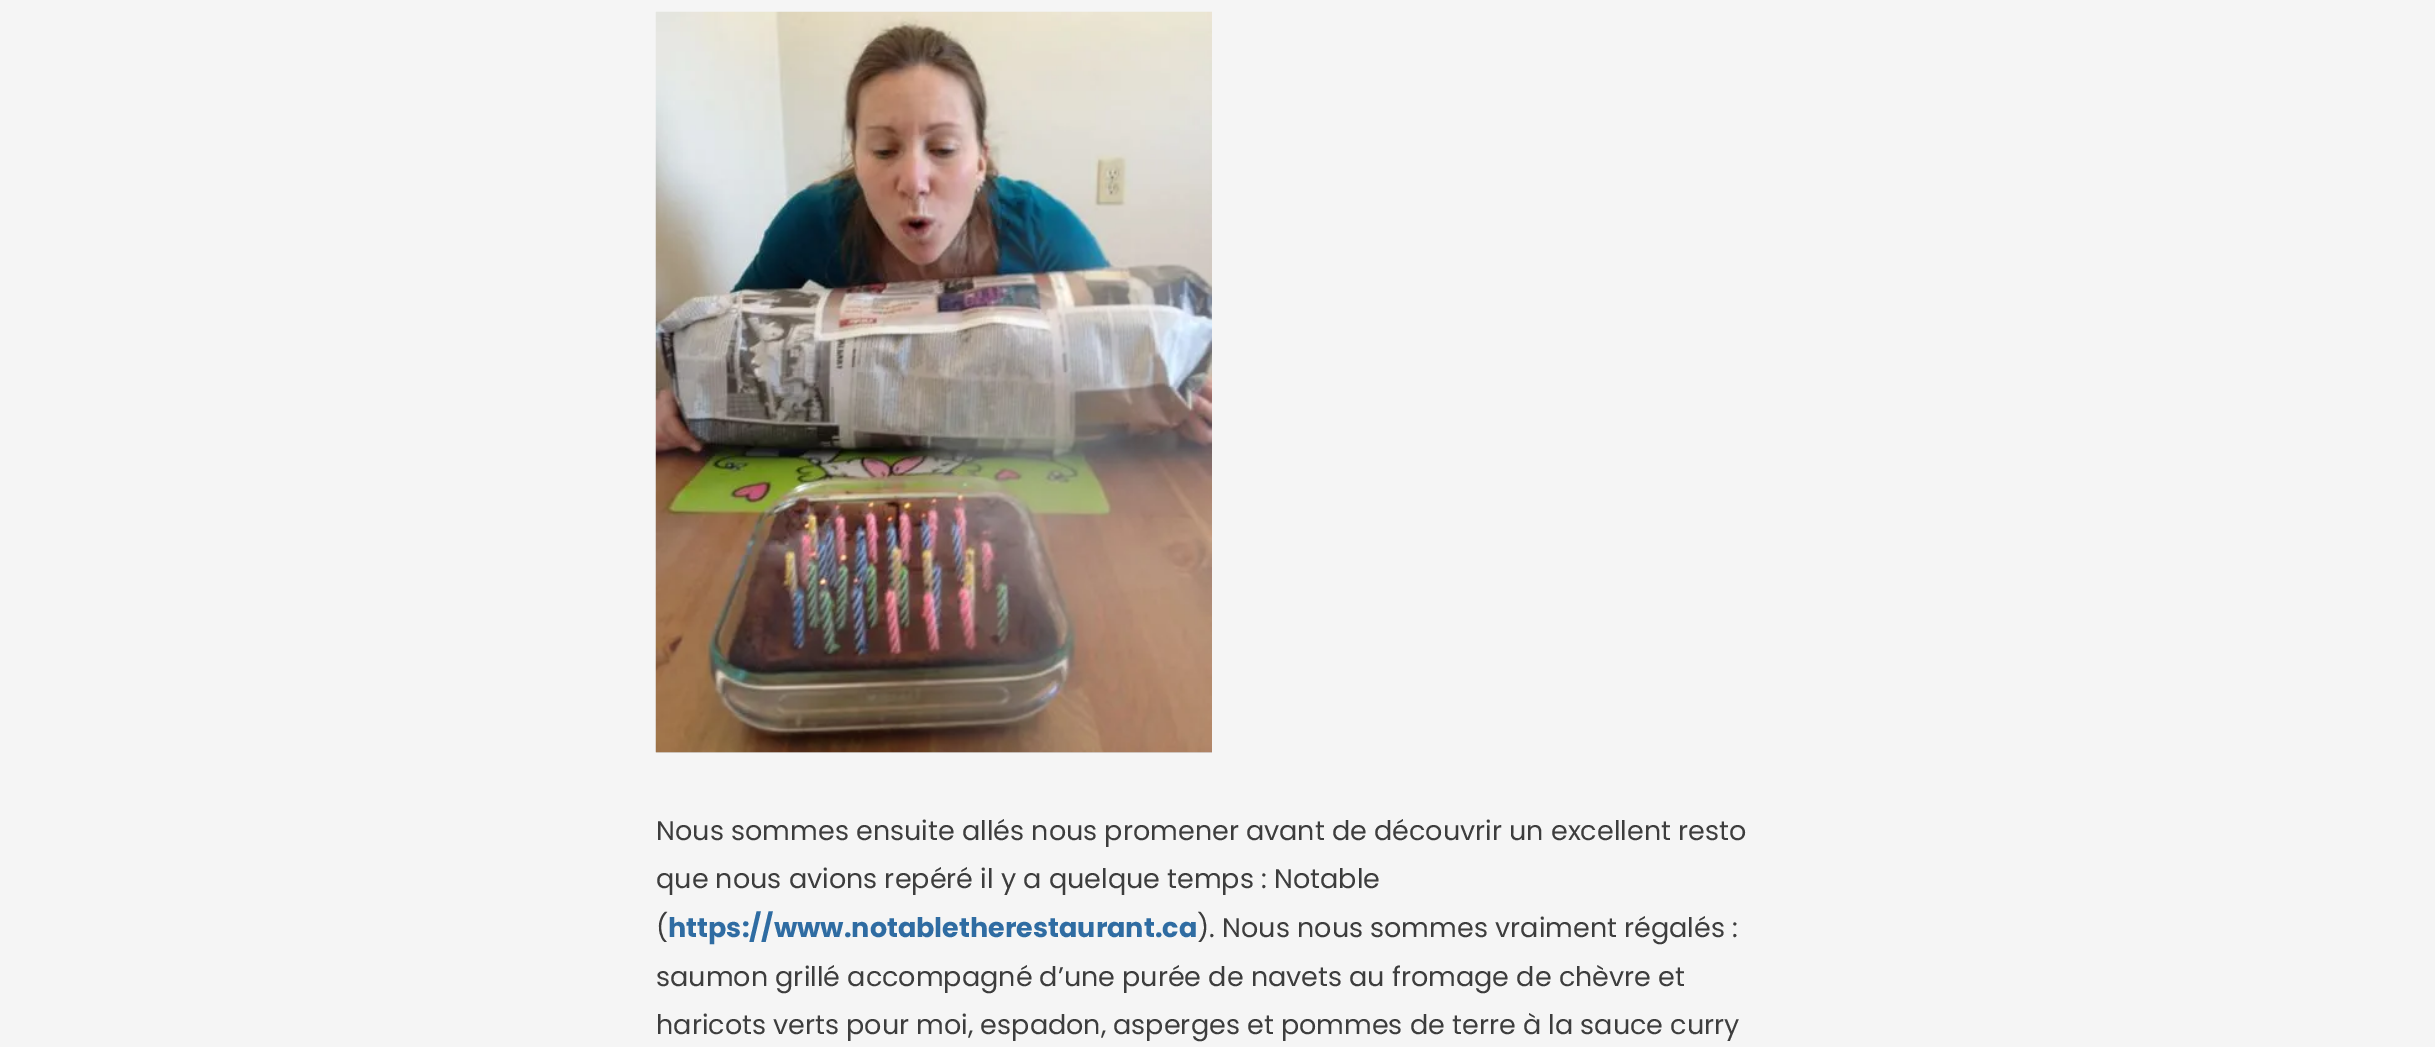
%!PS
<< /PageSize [2435 1047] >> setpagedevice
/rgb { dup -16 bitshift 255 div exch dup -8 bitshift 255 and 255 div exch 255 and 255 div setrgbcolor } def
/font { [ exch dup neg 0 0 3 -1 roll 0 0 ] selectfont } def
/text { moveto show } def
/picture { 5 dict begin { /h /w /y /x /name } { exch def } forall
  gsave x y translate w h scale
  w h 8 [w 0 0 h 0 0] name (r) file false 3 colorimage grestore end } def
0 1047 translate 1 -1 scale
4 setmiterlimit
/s1 { /Poppins-Regular 27 font 16#3D3D3D rgb } def
/s2 { /Poppins-Bold 27 font 16#2F6CA2 rgb } def
16#F5F5F5 rgb
0 0 2435 1047 rectfill
16#DDDDDD rgb
656 752 556 1 rectfill
(pic1.raw) 655 11 557 742 picture
s1
(Nous sommes ensuite allés nous promener avant de découvrir un excellent resto) 656 840 text
(que nous avions repéré il y a quelque temps : Notable) 656 888 text
(\() 656 937 text
s2
(https://www.notabletherestaurant.ca) 668 937 text
s1
(\). Nous nous sommes vraiment régalés :) 1197 937 text
(saumon grillé accompagné d’une purée de navets au fromage de chèvre et) 656 986 text
(haricots verts pour moi, espadon, asperges et pommes de terre à la sauce curry) 656 1034 text
showpage
